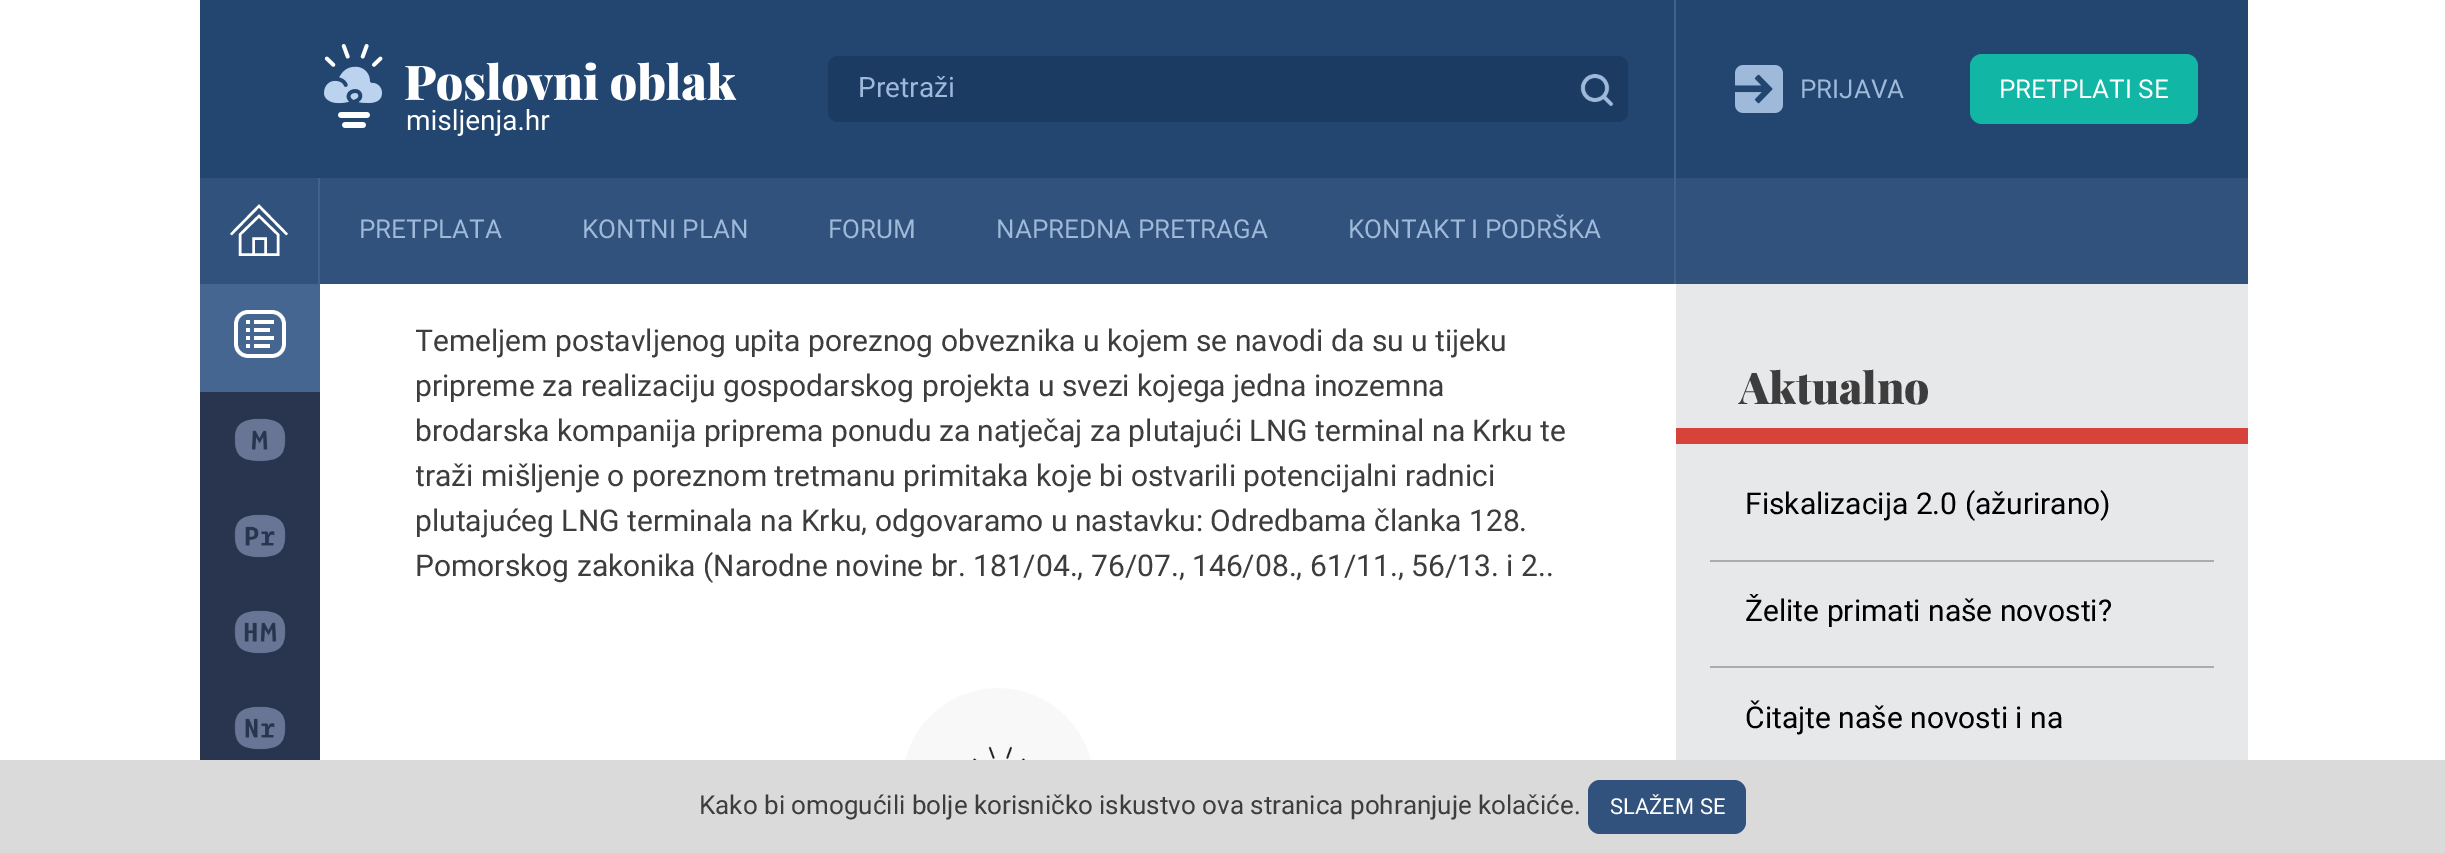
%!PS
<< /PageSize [2445 853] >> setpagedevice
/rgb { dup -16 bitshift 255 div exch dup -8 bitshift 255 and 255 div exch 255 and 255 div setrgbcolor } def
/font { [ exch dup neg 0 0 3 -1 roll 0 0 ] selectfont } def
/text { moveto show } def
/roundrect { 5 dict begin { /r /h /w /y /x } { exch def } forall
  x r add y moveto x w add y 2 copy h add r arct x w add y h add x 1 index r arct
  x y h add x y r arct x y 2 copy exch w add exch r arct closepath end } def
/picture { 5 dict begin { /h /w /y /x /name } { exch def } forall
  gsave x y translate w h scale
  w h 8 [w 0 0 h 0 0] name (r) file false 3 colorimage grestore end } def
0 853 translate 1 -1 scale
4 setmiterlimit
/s1 { /Roboto-Regular 28 font 16#9EB9D9 rgb } def
/s2 { /Roboto-Regular 26 font 16#9EB9D9 rgb } def
/s3 { /Roboto-Regular 26 font 16#FFFFFF rgb } def
/s4 { /PlayfairDisplay-Black 44 font 16#3D3D3D rgb } def
/s5 { /Roboto-Regular 30 font 16#000000 rgb } def
/s6 { /Roboto-Regular 30 font 16#3D3D3D rgb } def
/s7 { /Roboto-Regular 26 font 16#3D3D3D rgb } def
/s8 { /Roboto-Regular 22 font 16#FFFFFF rgb } def
16#FFFFFF rgb
0 0 2445 853 rectfill
16#31527C rgb
200 178 2048 106 rectfill
16#41638A rgb
1674 176 2 108 rectfill
318 176 2 108 rectfill
16#234670 rgb
200 0 2048 178 rectfill
16#41638A rgb
1674 0 2 178 rectfill
(pic1.raw) 324 44 413 92 picture
16#1C3B63 rgb
828 56 800 66 10 roundrect fill
s1
(Pretraži) 858 97 text
(pic2.raw) 1580 74 34 32 picture
(pic3.raw) 1735 65 48 48 picture
s2
(PRIJAVA) 1800 98 text
16#11B6A5 rgb
1970 54 228 70 12 roundrect fill
s3
(PRETPLATI SE) 1999 98 text
16#29344E rgb
200 392 120 368 rectfill
16#446691 rgb
200 284 120 108 rectfill
(pic4.raw) 234 310 52 48 picture
(pic5.raw) 234 418 52 44 picture
(pic6.raw) 234 514 52 44 picture
(pic7.raw) 234 610 52 44 picture
(pic8.raw) 234 706 52 44 picture
16#FFFFFF rgb
2.4 setlinewidth
278 234.5 moveto 278 254.5 lineto 240 254.5 lineto 240 234.5 lineto 259 216 lineto closepath 253.5 254.5 moveto 253.5 238.5 lineto 265.5 238.5 lineto 265.5 254.5 lineto 287 234.5 moveto 259 206 lineto 231 234.5 lineto stroke
s2
(PRETPLATA) 359 238 text
(KONTNI PLAN) 582 238 text
(FORUM) 828 238 text
(NAPREDNA PRETRAGA) 996 238 text
(KONTAKT I PODRŠKA) 1348 238 text
16#E7E8EA rgb
1676 284 572 476 rectfill
16#D7423A rgb
1676 428 572 16 rectfill
s4
(Aktualno) 1739 404 text
16#ACACAD rgb
1710 560 504 2 rectfill
s5
(Fiskalizacija 2.0 \(ažurirano\)) 1745 514 text
16#ACACAD rgb
1710 666 504 2 rectfill
s5
(Želite primati naše novosti?) 1745 621 text
(Čitajte naše novosti i na) 1745 728 text
gsave
416 318 1164 270 rectclip
s6
(Temeljem postavljenog upita poreznog obveznika u kojem se navodi da su u tijeku) 415 351 text
grestore
s6
(pripreme za realizaciju gospodarskog projekta u svezi kojega jedna inozemna) 415 396 text
(brodarska kompanija priprema ponudu za natječaj za plutajući LNG terminal na Krku te) 415 441 text
gsave
416 318 1164 270 rectclip
(traži mišljenje o poreznom tretmanu primitaka koje bi ostvarili potencijalni radnici) 415 486 text
grestore
(plutajućeg LNG terminala na Krku, odgovaramo u nastavku: Odredbama članka 128.) 415 531 text
(Pomorskog zakonika \(Narodne novine br. 181/04., 76/07., 146/08., 61/11., 56/13. i 2..) 415 576 text
(pic9.raw) 905 688 186 72 picture
16#DADADB rgb
0 760 2445 93 rectfill
s7
(Kako bi omogućili bolje korisničko iskustvo ova stranica pohranjuje kolačiće.) 699 814 text
16#31527C rgb
1588 780 158 54 12 roundrect fill
s8
(SLAŽEM SE) 1610 814 text
showpage
